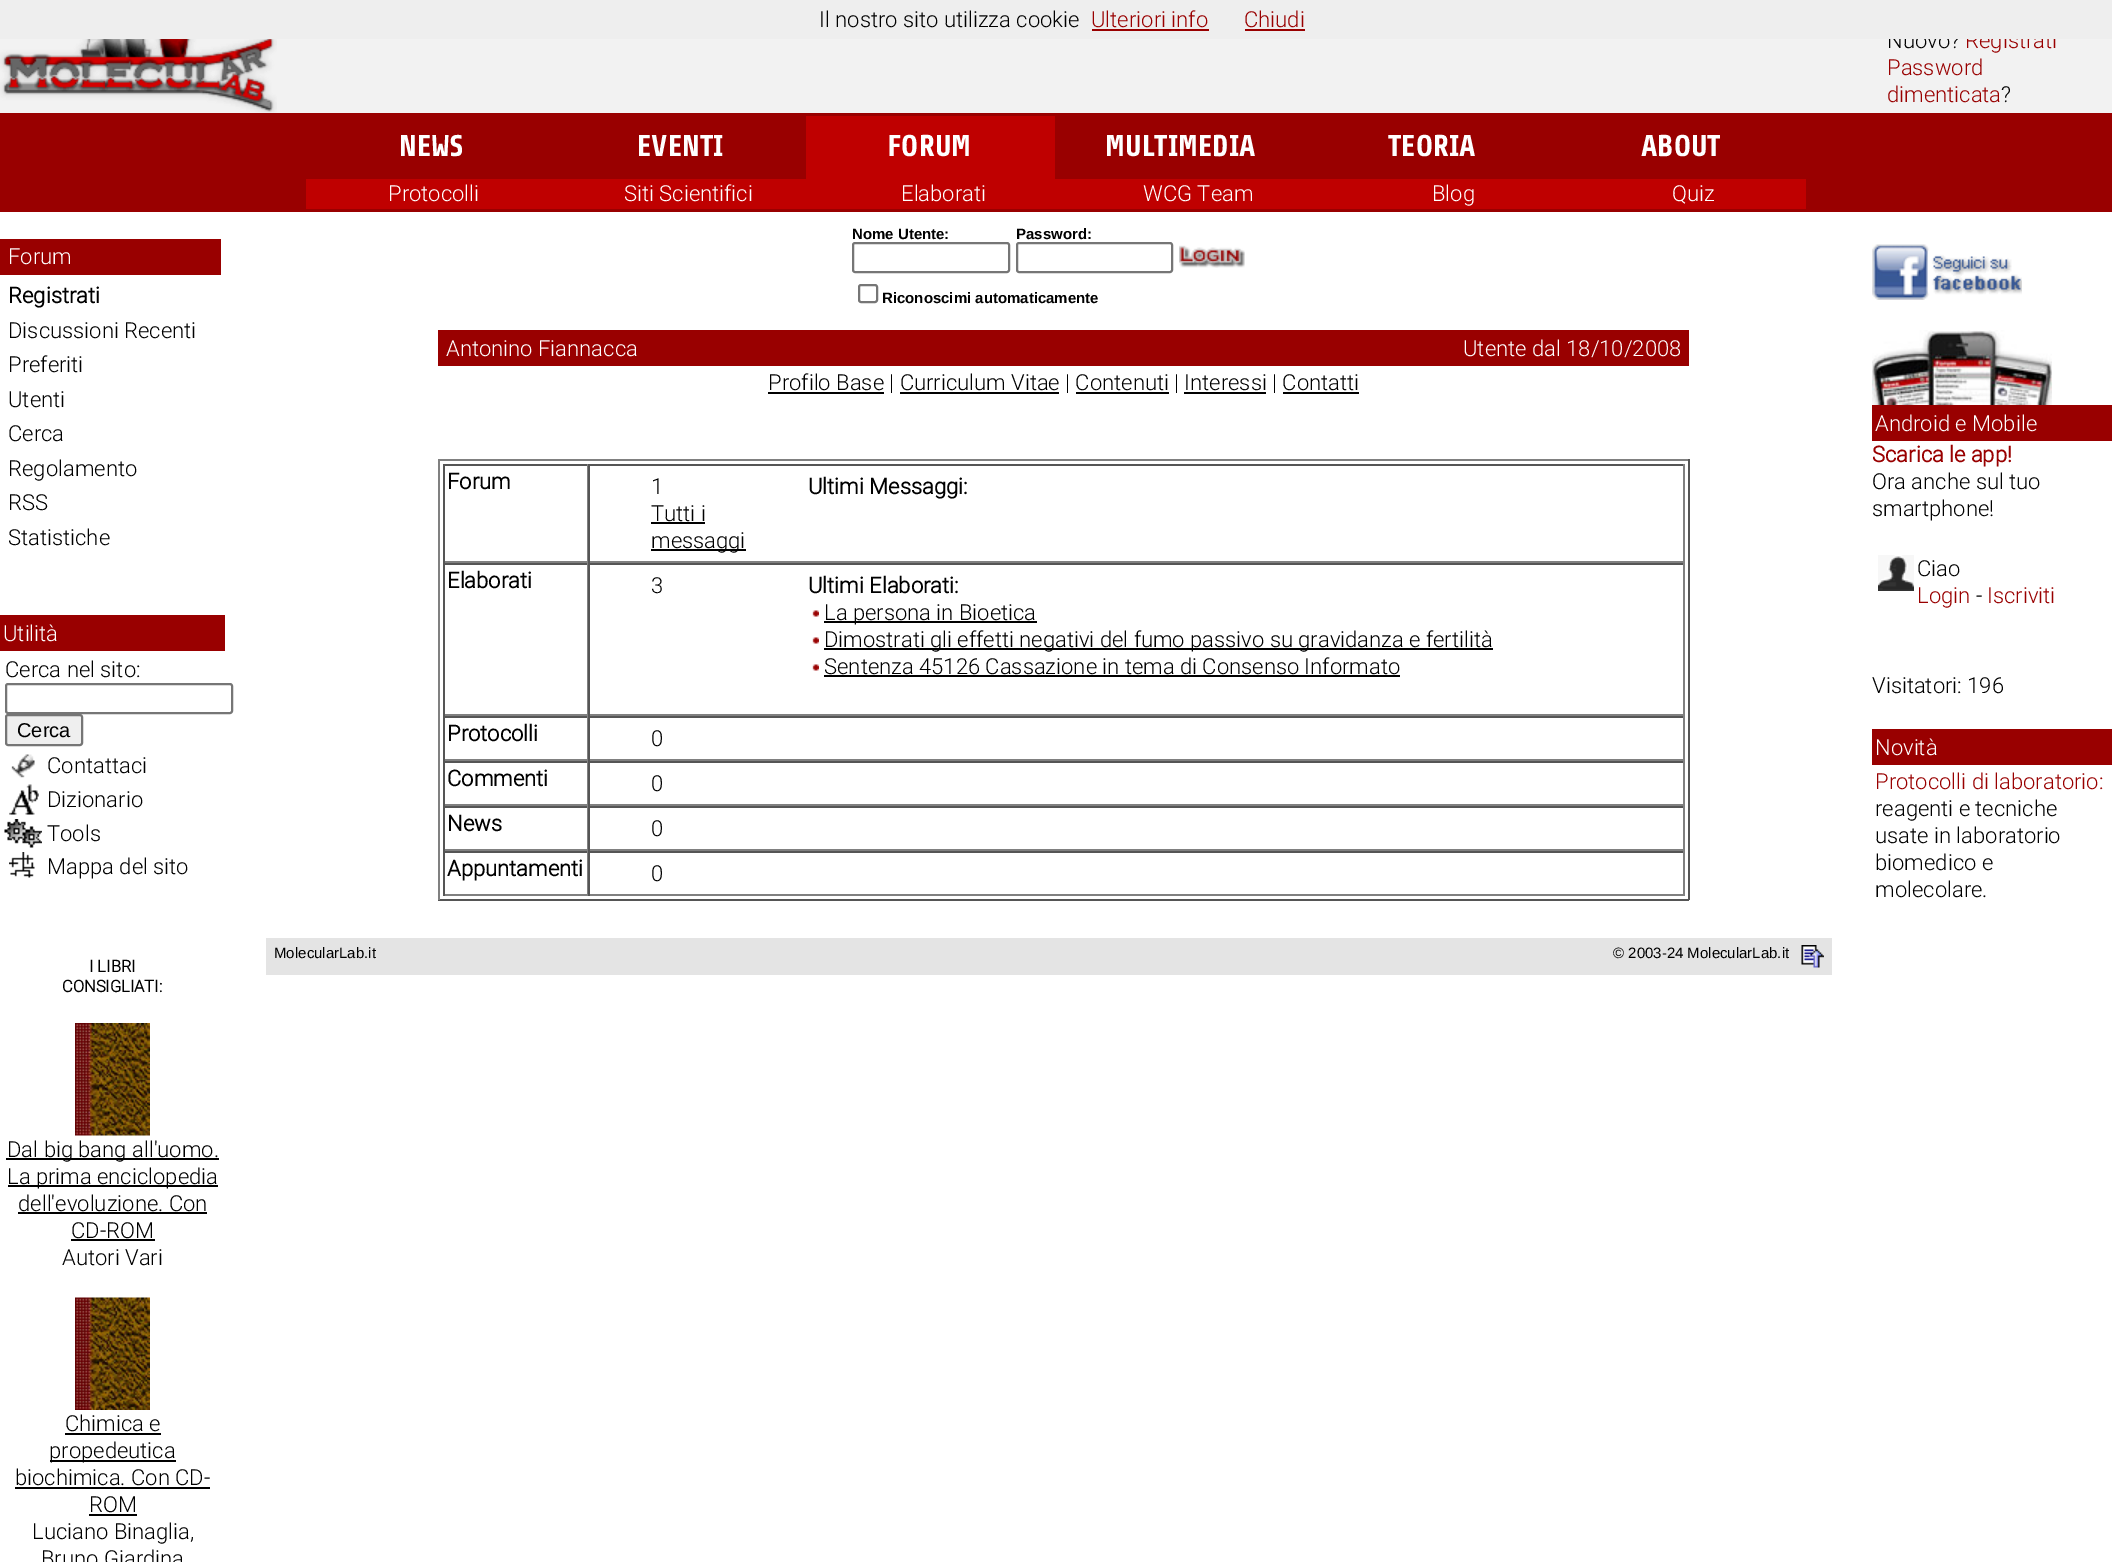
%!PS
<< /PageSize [2112 1562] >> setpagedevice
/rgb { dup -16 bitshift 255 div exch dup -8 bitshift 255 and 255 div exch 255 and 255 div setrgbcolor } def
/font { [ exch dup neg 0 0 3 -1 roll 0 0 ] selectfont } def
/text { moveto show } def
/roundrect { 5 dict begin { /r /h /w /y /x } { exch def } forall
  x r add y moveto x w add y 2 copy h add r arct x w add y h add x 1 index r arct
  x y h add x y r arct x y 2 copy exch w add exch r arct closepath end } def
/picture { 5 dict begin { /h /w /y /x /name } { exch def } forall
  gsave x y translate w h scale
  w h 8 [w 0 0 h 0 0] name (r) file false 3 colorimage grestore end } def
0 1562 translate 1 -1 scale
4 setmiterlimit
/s1 { /Roboto-Light 22 font 16#000000 rgb } def
/s2 { /Roboto-Light 22 font 16#990000 rgb } def
/s3 { /Share-Bold 30 font 16#FFFFFF rgb } def
/s4 { /Roboto-Light 22 font 16#FFFFFF rgb } def
/s5 { /Roboto-Bold 22 font 16#000000 rgb } def
/s6 { /LiberationSans-Regular 20 font 16#000000 rgb } def
/s7 { /Roboto-Bold 16.5 font 16#000000 rgb } def
/s8 { /LiberationSans-Bold 15 font 16#000000 rgb } def
/s9 { /LiberationSans-Regular 15 font 16#000000 rgb } def
/s10 { /Roboto-Bold 22 font 16#990000 rgb } def
16#FFFFFF rgb
0 0 2112 1562 rectfill
16#F2F2F2 rgb
0 39 2112 74 rectfill
s1
(Nuovo?) 1887 48 text
s2
(Registrati) 1965 48 text
16#EEEEEE rgb
0 0 2112 39 rectfill
s1
(Il nostro sito utilizza cookie) 819 27 text
s2
(Ulteriori info) 1091 27 text
1092 29 117 2 rectfill
(Chiudi) 1244 27 text
1245 29 60 2 rectfill
(Password) 1887 75 text
(dimenticata) 1887 102 text
s1
(?) 2001 102 text
(pic1.raw) 0 39 277 74 picture
16#990000 rgb
0 113 2112 99 rectfill
s3
(NEWS) 399 156 text
(EVENTI) 637 156 text
16#BF0000 rgb
806 116 249 63 rectfill
s3
(FORUM) 887 156 text
(MULTIMEDIA) 1105 156 text
(TEORIA) 1388 156 text
(ABOUT) 1641 156 text
16#BF0000 rgb
306 179 1500 30 rectfill
s4
(Protocolli) 388 201 text
(Siti Scientifici) 624 201 text
(Elaborati) 901 201 text
(WCG Team) 1143 201 text
(Blog) 1432 201 text
(Quiz) 1672 201 text
16#990000 rgb
0 239 221 36 rectfill
s4
(Forum) 8 264 text
s5
(Registrati) 8 303 text
s1
(Discussioni Recenti) 8 338 text
(Preferiti) 8 372 text
(Utenti) 8 407 text
(Cerca) 8 441 text
(Regolamento) 8 476 text
(RSS) 8 510 text
(Statistiche) 8 545 text
16#990000 rgb
0 615 225 36 rectfill
s4
(Utilità) 3 641 text
s1
(Cerca nel sito:) 5 677 text
16#767676 rgb
2 setlinewidth
6 684 226 29 2 roundrect stroke
16#EFEFEF rgb
6 715 76 30 2 roundrect gsave fill grestore
16#767676 rgb
stroke
s6
(Cerca) 17 737 text
(pic2.raw) 11 754 24 24 picture
s1
(Contattaci) 47 773 text
(pic3.raw) 9 784 30 31 picture
(Dizionario) 47 807 text
(pic4.raw) 4 819 38 29 picture
(Tools) 47 841 text
(pic5.raw) 9 852 26 26 picture
(Mappa del sito) 47 874 text
s7
(I LIBRI) 89 972 text
(CONSIGLIATI:) 62 992 text
(pic6.raw) 75 1023 75 113 picture
6 1158 213 2 rectfill
s1
(Dal big bang all'uomo.) 7 1157 text
8 1185 210 2 rectfill
(La prima enciclopedia) 7 1184 text
(dell'evoluzione. Con) 18 1211 text
18 1212 189 2 rectfill
(CD-ROM) 71 1238 text
71 1239 84 2 rectfill
(Autori Vari) 62 1265 text
(pic7.raw) 75 1297 75 113 picture
(Chimica e) 65 1431 text
65 1433 96 2 rectfill
50 1460 126 2 rectfill
(propedeutica) 49 1458 text
(biochimica. Con CD-) 15 1485 text
15 1487 195 2 rectfill
(ROM) 89 1512 text
89 1514 48 2 rectfill
(Luciano Binaglia,) 32 1539 text
(Bruno Giardina) 41 1566 text
s8
(Nome Utente:) 852 239 text
16#767676 rgb
853 243 156 29 2 roundrect stroke
s8
(Password:) 1016 239 text
16#767676 rgb
1017 243 155 29 2 roundrect stroke
(pic8.raw) 1179 245 66 23 picture
859 285 18 17 2 roundrect stroke
s8
(Riconoscimi automaticamente) 882 303 text
16#990000 rgb
438 330 1251 36 rectfill
s4
(Antonino Fiannacca) 446 356 text
(Utente dal 18/10/2008) 1463 356 text
16#000000 rgb
768 392 116 2 rectfill
(Profilo Base | Curriculum Vitae | Contenuti | Interessi | Contatti) 768 390 text
900 392 159 2 rectfill
1076 392 93 2 rectfill
1184 392 82 2 rectfill
1283 392 76 2 rectfill
16#808080 rgb
438 459 1251 2 rectfill
16#555555 rgb
1688 459 2 441 rectfill
438 899 1251 2 rectfill
16#808080 rgb
438 459 2 441 rectfill
16#555555 rgb
443 464 1242 2 rectfill
16#808080 rgb
587 464 1 99 rectfill
443 561 145 2 rectfill
16#555555 rgb
443 464 2 99 rectfill
s5
(Forum) 447 489 text
16#808080 rgb
1683 464 2 99 rectfill
588 561 1097 2 rectfill
16#555555 rgb
588 464 2 99 rectfill
s1
(1) 651 494 text
(Tutti i) 651 521 text
651 522 54 2 rectfill
651 549 95 2 rectfill
(messaggi) 651 548 text
s5
(Ultimi Messaggi:) 808 494 text
16#555555 rgb
443 563 1242 2 rectfill
16#808080 rgb
587 563 1 153 rectfill
443 714 145 2 rectfill
16#555555 rgb
443 563 2 153 rectfill
s5
(Elaborati) 447 588 text
16#808080 rgb
1683 563 2 153 rectfill
588 714 1097 2 rectfill
16#555555 rgb
588 563 2 153 rectfill
s1
(3) 651 593 text
s5
(Ultimi Elaborati:) 808 593 text
(pic9.raw) 812 610 7 7 picture
824 621 213 2 rectfill
s1
(La persona in Bioetica) 824 620 text
(pic9.raw) 812 637 7 7 picture
824 648 669 2 rectfill
(Dimostrati gli effetti negativi del fumo passivo su gravidanza e fertilità) 824 647 text
(pic9.raw) 812 664 7 7 picture
(Sentenza 45126 Cassazione in tema di Consenso Informato) 824 674 text
824 675 576 2 rectfill
16#555555 rgb
443 716 1242 2 rectfill
16#808080 rgb
587 716 1 45 rectfill
443 759 145 2 rectfill
16#555555 rgb
443 716 2 45 rectfill
s5
(Protocolli) 447 741 text
16#808080 rgb
1683 716 2 45 rectfill
588 759 1097 2 rectfill
16#555555 rgb
588 716 2 45 rectfill
s1
(0) 651 746 text
16#555555 rgb
443 761 1242 2 rectfill
16#808080 rgb
587 761 1 45 rectfill
443 804 145 2 rectfill
16#555555 rgb
443 761 2 45 rectfill
s5
(Commenti) 447 786 text
16#808080 rgb
1683 761 2 45 rectfill
588 804 1097 2 rectfill
16#555555 rgb
588 761 2 45 rectfill
s1
(0) 651 791 text
16#555555 rgb
443 806 1242 2 rectfill
16#808080 rgb
587 806 1 45 rectfill
443 849 145 2 rectfill
16#555555 rgb
443 806 2 45 rectfill
s5
(News) 447 831 text
16#808080 rgb
1683 806 2 45 rectfill
588 849 1097 2 rectfill
16#555555 rgb
588 806 2 45 rectfill
s1
(0) 651 836 text
16#555555 rgb
443 851 1242 2 rectfill
16#808080 rgb
587 851 1 45 rectfill
443 894 145 2 rectfill
16#555555 rgb
443 851 2 45 rectfill
s5
(Appuntamenti) 447 876 text
16#808080 rgb
1683 851 2 45 rectfill
588 894 1097 2 rectfill
16#555555 rgb
588 851 2 45 rectfill
s1
(0) 651 881 text
16#E4E4E4 rgb
266 938 1566 37 rectfill
s9
(MolecularLab.it) 274 958 text
(© 2003-24 MolecularLab.it) 1613 958 text
(pic10.raw) 1801 945 23 23 picture
(pic11.raw) 1872 244 150 56 picture
(pic12.raw) 1872 330 180 75 picture
16#990000 rgb
1872 405 240 36 rectfill
s4
(Android e Mobile) 1875 431 text
s10
(Scarica le app!) 1872 462 text
s1
(Ora anche sul tuo) 1872 489 text
(smartphone!) 1872 516 text
(pic13.raw) 1878 555 36 36 picture
(Ciao) 1917 576 text
s2
(Login) 1917 603 text
s1
(-) 1976 603 text
s2
(Iscriviti) 1987 603 text
s1
(Visitatori: 196) 1872 693 text
16#990000 rgb
1872 729 240 36 rectfill
s4
(Novità) 1875 755 text
s2
(Protocolli di laboratorio:) 1875 789 text
s1
(reagenti e tecniche) 1875 816 text
(usate in laboratorio) 1875 843 text
(biomedico e) 1875 870 text
(molecolare.) 1875 897 text
showpage
